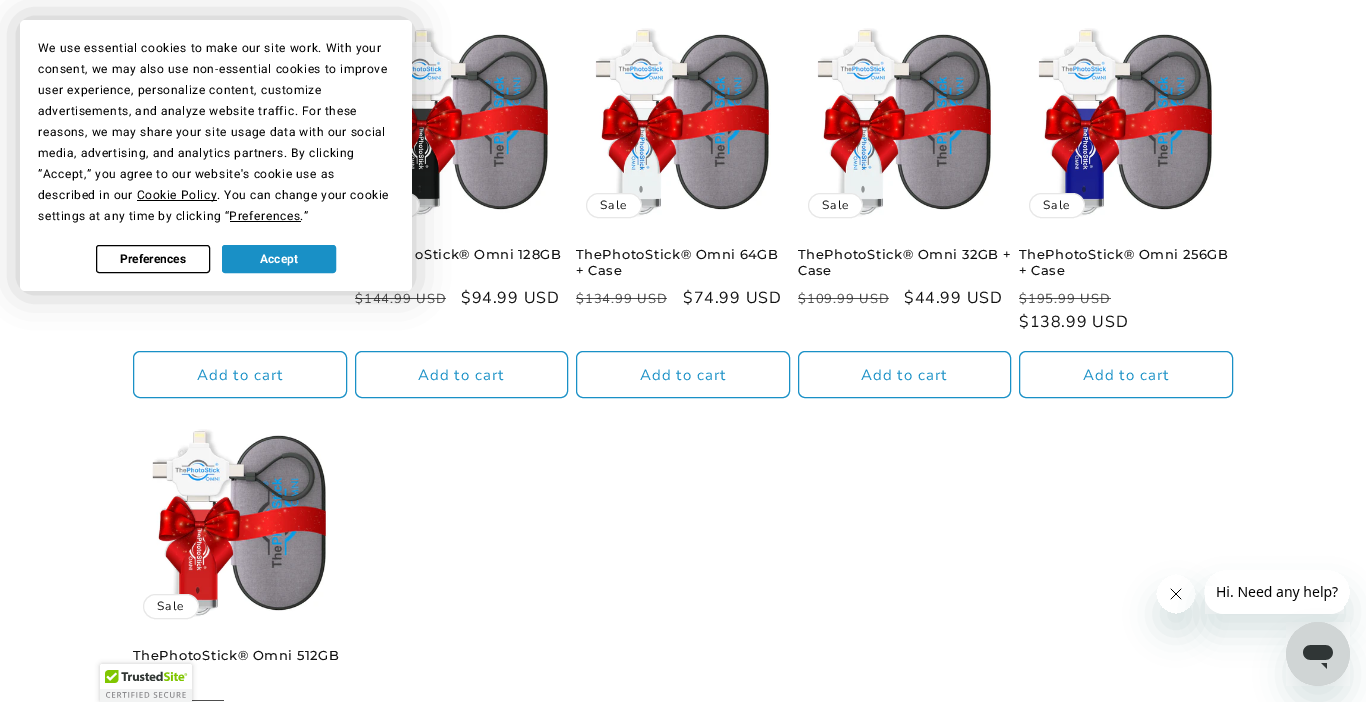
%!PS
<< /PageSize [1366 702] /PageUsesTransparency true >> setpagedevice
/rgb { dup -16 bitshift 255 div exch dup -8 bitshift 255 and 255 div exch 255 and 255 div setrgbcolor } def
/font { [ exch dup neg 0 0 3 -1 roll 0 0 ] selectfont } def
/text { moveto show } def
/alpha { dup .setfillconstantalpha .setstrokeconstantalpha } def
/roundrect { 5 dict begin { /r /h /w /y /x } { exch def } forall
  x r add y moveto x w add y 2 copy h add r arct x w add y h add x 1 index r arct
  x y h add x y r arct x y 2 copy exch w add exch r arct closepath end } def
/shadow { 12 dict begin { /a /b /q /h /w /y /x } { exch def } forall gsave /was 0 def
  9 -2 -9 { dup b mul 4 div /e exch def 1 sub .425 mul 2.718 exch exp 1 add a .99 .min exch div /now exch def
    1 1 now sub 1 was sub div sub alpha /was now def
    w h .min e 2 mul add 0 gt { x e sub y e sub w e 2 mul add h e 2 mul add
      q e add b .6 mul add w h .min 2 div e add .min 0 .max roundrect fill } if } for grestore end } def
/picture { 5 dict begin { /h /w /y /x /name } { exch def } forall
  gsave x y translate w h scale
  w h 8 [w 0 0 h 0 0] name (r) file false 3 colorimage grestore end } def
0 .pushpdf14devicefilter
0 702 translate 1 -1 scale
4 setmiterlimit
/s1 { /Roboto-Bold 12 font 16#000000 rgb } def
/s2 { /Roboto-Bold 12 font 16#FFFFFF rgb } def
16#FFFFFF rgb
0 0 1366 702 rectfill
(pic1.raw) 412 28 138 188 picture
365 193 55 25 12.5 roundrect fill
0.1 alpha
16#121212 rgb
365.5 193.5 54 24 12 roundrect stroke
/NunitoSans-Regular 13 font
1 alpha
16#4D4D4D rgb
355 303 moveto 1 0 ($144.99 USD) ashow
0.75 alpha
16#121212 rgb
355 298 91 1 rectfill
1 alpha
16#000000 rgb
20 20 392 271 5 17.5 0.25 shadow
16#FFFFFF rgb
20 20 392 271 5 roundrect fill
/Roboto-Regular 12 font
16#000000 rgb
38 52 moveto 0.6 0 (We use essential cookies to make our site work. With your) ashow
38 73 moveto 0.6 0 (consent, we may also use non-essential cookies to improve) ashow
38 94 moveto 0.6 0 (user experience, personalize content, customize) ashow
38 115 moveto 0.6 0 (advertisements, and analyze website traffic. For these) ashow
38 136 moveto 0.6 0 (reasons, we may share your site usage data with our social) ashow
38 157 moveto 0.6 0 (media, advertising, and analytics partners. By clicking) ashow
38 178 moveto 0.6 0 (”Accept,” you agree to our website's cookie use as) ashow
38 199 moveto 0.6 0 (described in our) ashow
137 200 80 1 rectfill
137 199 moveto 0.6 0 (Cookie Policy. You can change your cookie) ashow
38 220 moveto 0.6 0 (settings at any time by clicking “Preferences.”) ashow
230 221 71 1 rectfill
96.5 245.5 113 27 2.5 roundrect stroke
s1
(Preferences) 120 263 text
16#1990C6 rgb
222.5 245.5 113 27 2.5 roundrect gsave fill grestore
stroke
s2
(Accept) 260 263 text
16#1990C6 rgb
133.5 351.5 213 46 6.5 roundrect stroke
/NunitoSans-Regular 15 font
197 380 moveto 1 0 (Add to cart) ashow
/Montserrat-Medium 13 font
16#121212 rgb
415 259 moveto 0.6 0 (oStick® Omni 128GB) ashow
/NunitoSans-Regular 16 font
461 303 moveto 1 0 ($94.99 USD) ashow
16#1990C6 rgb
355.5 351.5 212 46 6.5 roundrect stroke
/NunitoSans-Regular 15 font
418 380 moveto 1 0 (Add to cart) ashow
(pic2.raw) 595 28 176 189 picture
16#FFFFFF rgb
586 193 56 25 12.5 roundrect fill
0.1 alpha
16#121212 rgb
586.5 193.5 55 24 12 roundrect stroke
/NunitoSans-Regular 12 font
1 alpha
600 209 moveto 1 0 (Sale) ashow
/Montserrat-Medium 13 font
576 259 moveto 0.6 0 (ThePhotoStick® Omni 64GB) ashow
576 275 moveto 0.6 0 (+ Case) ashow
/NunitoSans-Regular 13 font
16#4D4D4D rgb
576 303 moveto 1 0 ($134.99 USD) ashow
0.75 alpha
16#121212 rgb
576 298 91 1 rectfill
/NunitoSans-Regular 16 font
1 alpha
683 303 moveto 1 0 ($74.99 USD) ashow
16#1990C6 rgb
576.5 351.5 213 46 6.5 roundrect stroke
/NunitoSans-Regular 15 font
640 380 moveto 1 0 (Add to cart) ashow
(pic3.raw) 817 28 176 189 picture
16#FFFFFF rgb
808 193 55 25 12.5 roundrect fill
0.1 alpha
16#121212 rgb
808.5 193.5 54 24 12 roundrect stroke
/NunitoSans-Regular 12 font
1 alpha
822 209 moveto 1 0 (Sale) ashow
/Montserrat-Medium 13 font
798 259 moveto 0.6 0 (ThePhotoStick® Omni 32GB +) ashow
798 275 moveto 0.6 0 (Case) ashow
/NunitoSans-Regular 13 font
16#4D4D4D rgb
798 303 moveto 1 0 ($109.99 USD) ashow
0.75 alpha
16#121212 rgb
798 298 91 1 rectfill
/NunitoSans-Regular 16 font
1 alpha
904 303 moveto 1 0 ($44.99 USD) ashow
16#1990C6 rgb
798.5 351.5 212 46 6.5 roundrect stroke
/NunitoSans-Regular 15 font
861 380 moveto 1 0 (Add to cart) ashow
(pic4.raw) 1038 28 176 189 picture
16#FFFFFF rgb
1029 193 56 25 12.5 roundrect fill
0.1 alpha
16#121212 rgb
1029.5 193.5 55 24 12 roundrect stroke
/NunitoSans-Regular 12 font
1 alpha
1043 209 moveto 1 0 (Sale) ashow
/Montserrat-Medium 13 font
1019 259 moveto 0.6 0 (ThePhotoStick® Omni 256GB) ashow
1019 275 moveto 0.6 0 (+ Case) ashow
/NunitoSans-Regular 13 font
16#4D4D4D rgb
1019 303 moveto 1 0 ($195.99 USD) ashow
0.75 alpha
16#121212 rgb
1019 298 92 1 rectfill
/NunitoSans-Regular 16 font
1 alpha
1019 327 moveto 1 0 ($138.99 USD) ashow
16#1990C6 rgb
1019.5 351.5 213 46 6.5 roundrect stroke
/NunitoSans-Regular 15 font
1083 380 moveto 1 0 (Add to cart) ashow
(pic5.raw) 152 429 176 188 picture
16#FFFFFF rgb
143 594 56 25 12.5 roundrect fill
0.1 alpha
16#121212 rgb
143.5 594.5 55 24 12 roundrect stroke
/NunitoSans-Regular 12 font
1 alpha
157 610 moveto 1 0 (Sale) ashow
/Montserrat-Medium 13 font
133 660 moveto 0.6 0 (ThePhotoStick® Omni 512GB) ashow
0.75 alpha
192 700 32 1 rectfill
gsave
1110 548 moveto 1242 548 lineto 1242 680 lineto 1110 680 lineto closepath 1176 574 moveto 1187 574 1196 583 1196 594 curveto 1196 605 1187 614 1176 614 curveto 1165 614 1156 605 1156 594 curveto 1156 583 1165 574 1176 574 curveto closepath eoclip newpath
1 alpha
16#17494D rgb
1156 594 40 40 20 15 0.15 shadow
grestore
1 alpha
(pic7.raw) 1170 588 12 12 picture
gsave
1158 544 moveto 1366 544 lineto 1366 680 lineto 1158 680 lineto closepath 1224 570 moveto 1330 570 lineto 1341 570 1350 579 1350 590 curveto 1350 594 lineto 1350 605 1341 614 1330 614 curveto 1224 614 lineto 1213 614 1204 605 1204 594 curveto 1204 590 lineto 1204 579 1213 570 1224 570 curveto closepath eoclip newpath
16#17494D rgb
1204 590 146 44 20 15 0.15 shadow
grestore
(pic6.raw) 1205 586 139 28 picture
16#17494D rgb
1286 642 64 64 32 15 0.15 shadow
(pic8.raw) 1286 622 64 64 picture
16#000000 rgb
100 664 92 38 2 2.5 0.2 shadow
16#FFFFFF rgb
102 664 moveto 190 664 lineto 191 664 192 665 192 666 curveto 192 702 lineto 100 702 lineto 100 666 lineto 100 665 101 664 102 664 curveto closepath fill
(pic9.raw) 100 670 92 32 picture
.poppdf14devicefilter showpage
